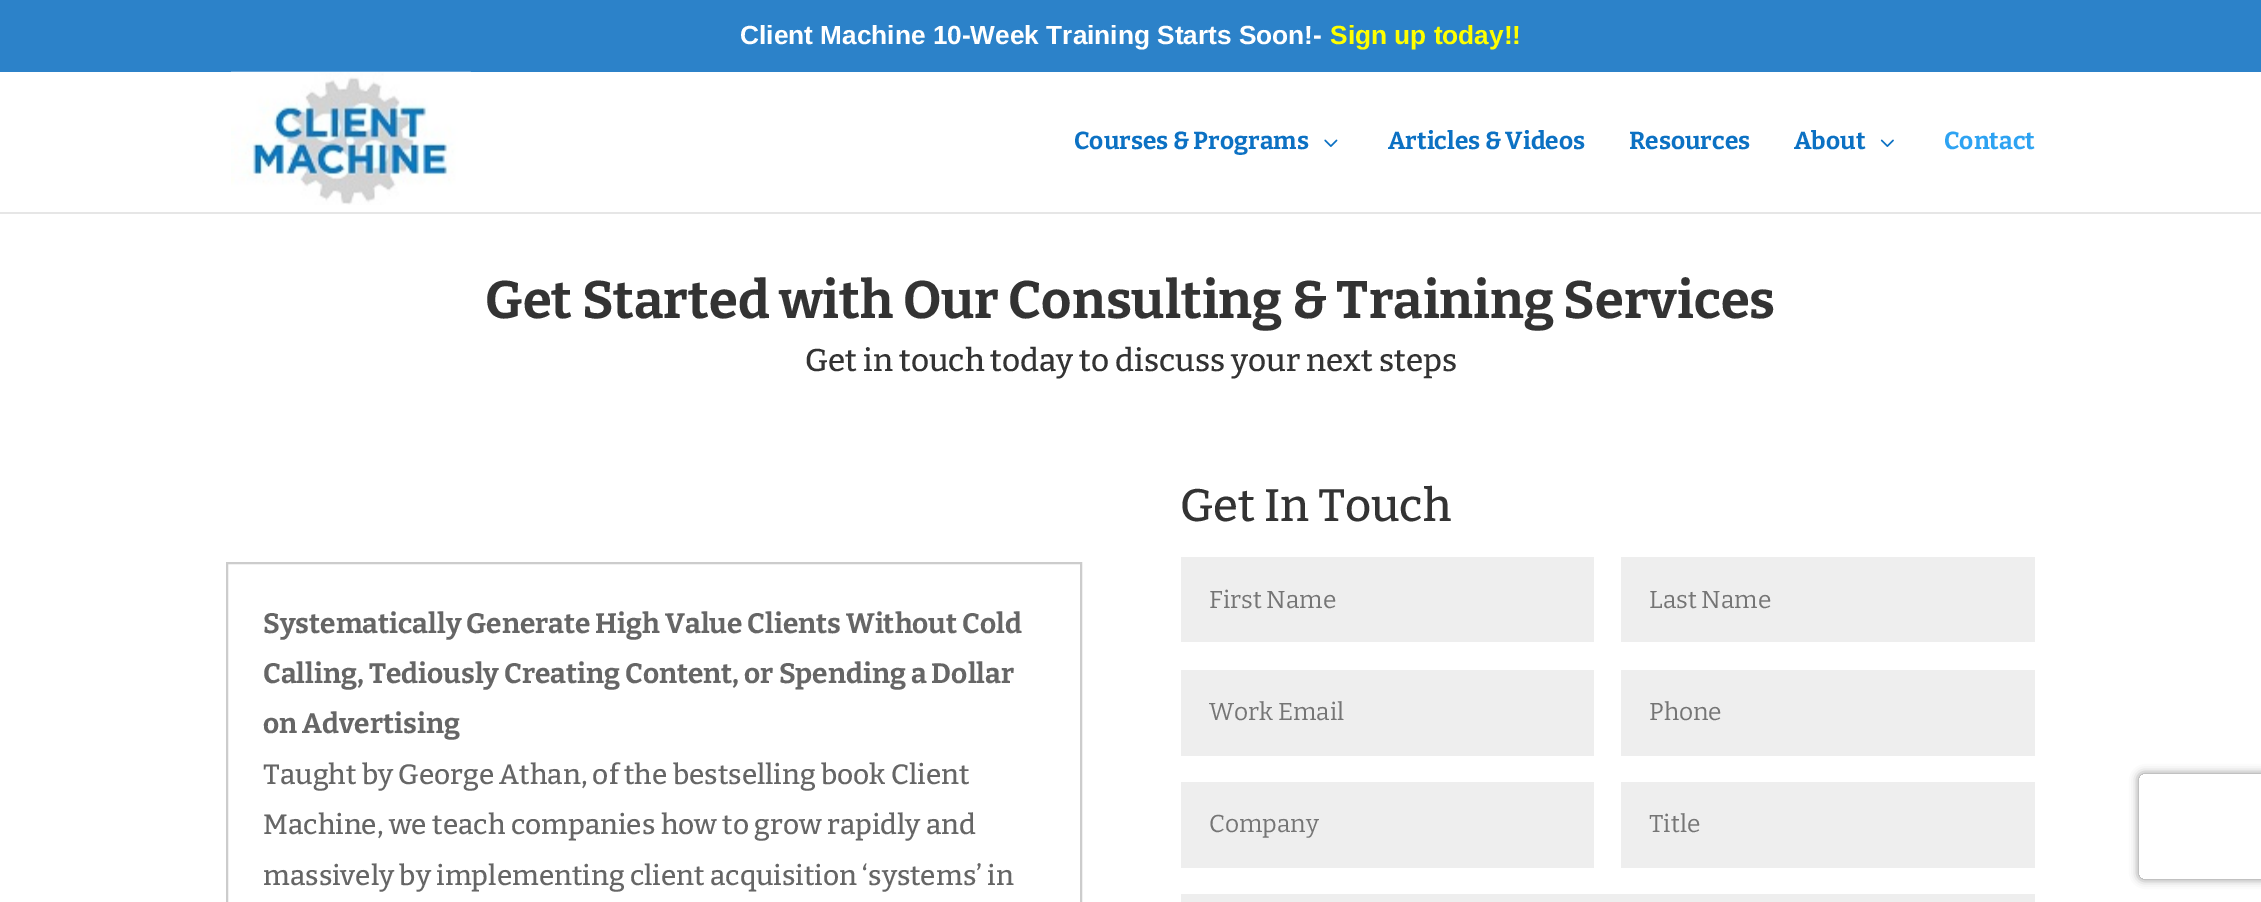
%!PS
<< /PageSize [2261 902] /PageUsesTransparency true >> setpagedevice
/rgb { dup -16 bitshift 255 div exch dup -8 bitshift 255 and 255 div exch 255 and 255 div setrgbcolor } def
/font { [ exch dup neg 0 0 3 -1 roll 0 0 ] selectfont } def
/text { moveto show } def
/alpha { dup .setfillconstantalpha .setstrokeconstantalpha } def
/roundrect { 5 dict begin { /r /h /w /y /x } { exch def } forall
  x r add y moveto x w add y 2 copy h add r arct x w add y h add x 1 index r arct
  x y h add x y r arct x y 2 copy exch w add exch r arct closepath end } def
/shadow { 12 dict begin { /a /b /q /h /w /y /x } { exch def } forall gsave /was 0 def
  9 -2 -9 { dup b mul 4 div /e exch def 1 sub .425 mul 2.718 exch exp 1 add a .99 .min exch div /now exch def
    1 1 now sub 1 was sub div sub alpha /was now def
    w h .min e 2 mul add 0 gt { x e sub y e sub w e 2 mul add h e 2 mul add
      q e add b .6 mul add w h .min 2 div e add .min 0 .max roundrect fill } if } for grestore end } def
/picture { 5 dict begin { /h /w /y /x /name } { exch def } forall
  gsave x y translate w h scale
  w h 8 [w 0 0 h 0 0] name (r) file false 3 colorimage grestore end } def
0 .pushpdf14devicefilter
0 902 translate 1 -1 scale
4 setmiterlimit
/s1 { /LiberationSans-Bold 26.25 font 16#FFFFFF rgb } def
/s2 { /LiberationSans-Bold 26.25 font 16#FFFF00 rgb } def
/s3 { /Bitter-Bold 24.5 font 16#0C71C3 rgb } def
/s4 { /Bitter-Bold 24.5 font 16#2EA3F2 rgb } def
/s5 { /Bitter-Bold 52.5 font 16#333333 rgb } def
/s6 { /Bitter-Medium 31.5 font 16#333333 rgb } def
/s7 { /Bitter-Bold 28 font 16#666666 rgb } def
/s8 { /Bitter-Medium 28 font 16#666666 rgb } def
/s9 { /Bitter-Medium 45.5 font 16#333333 rgb } def
/s10 { /Bitter-Regular 24.5 font 16#757575 rgb } def
16#FFFFFF rgb
0 0 2261 902 rectfill
16#2C82C9 rgb
0 0 2261 72 rectfill
s1
(Client Machine 10-Week Training Starts Soon!-) 740 44 text
s2
(Sign up today!!) 1330 44 text
16#E6E6E6 rgb
0 212 2261 2 rectfill
(pic1.raw) 231 71 240 134 picture
s3
(Courses & Programs) 1074 149 text
(pic2.raw) 1324 139 14 8 picture
(Articles & Videos) 1388 149 text
(Resources) 1629 149 text
(About) 1794 149 text
(pic3.raw) 1880 139 14 8 picture
s4
(Contact) 1944 149 text
s5
(Get Started with Our Consulting & Training Services) 485 318 text
s6
(Get in touch today to discuss your next steps) 805 371 text
16#CCCCCC rgb
2 setlinewidth
227 563 854 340 rectstroke
s7
(Systematically Generate High Value Clients Without Cold) 263 633 text
(Calling, Tediously Creating Content, or Spending a Dollar) 263 683 text
(on Advertising) 263 733 text
s8
(Taught by George Athan, of the bestselling book Client) 263 784 text
(Machine, we teach companies how to grow rapidly and) 263 834 text
(massively by implementing client acquisition ‘systems’ in) 263 885 text
s9
(Get In Touch) 1180 521 text
16#EEEEEE rgb
1181 557 413 85 rectfill
s10
(First Name) 1209 608 text
16#EEEEEE rgb
1621 557 414 85 rectfill
s10
(Last Name) 1649 608 text
16#EEEEEE rgb
1181 670 413 86 rectfill
s10
(Work Email) 1209 720 text
16#EEEEEE rgb
1621 670 414 86 rectfill
s10
(Phone) 1649 720 text
16#EEEEEE rgb
1181 782 413 86 rectfill
s10
(Company) 1209 832 text
16#EEEEEE rgb
1621 782 414 86 rectfill
s10
(Title) 1649 832 text
16#EEEEEE rgb
1181 894 854 8 rectfill
gsave
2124 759 moveto 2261 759 lineto 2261 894 lineto 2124 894 lineto closepath 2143 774 moveto 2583 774 lineto 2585 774 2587 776 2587 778 curveto 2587 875 lineto 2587 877 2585 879 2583 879 curveto 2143 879 lineto 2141 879 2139 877 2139 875 curveto 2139 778 lineto 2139 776 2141 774 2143 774 curveto closepath eoclip newpath
16#808080 rgb
2139 774 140 105 4 4.5 1 shadow
grestore
.poppdf14devicefilter showpage
